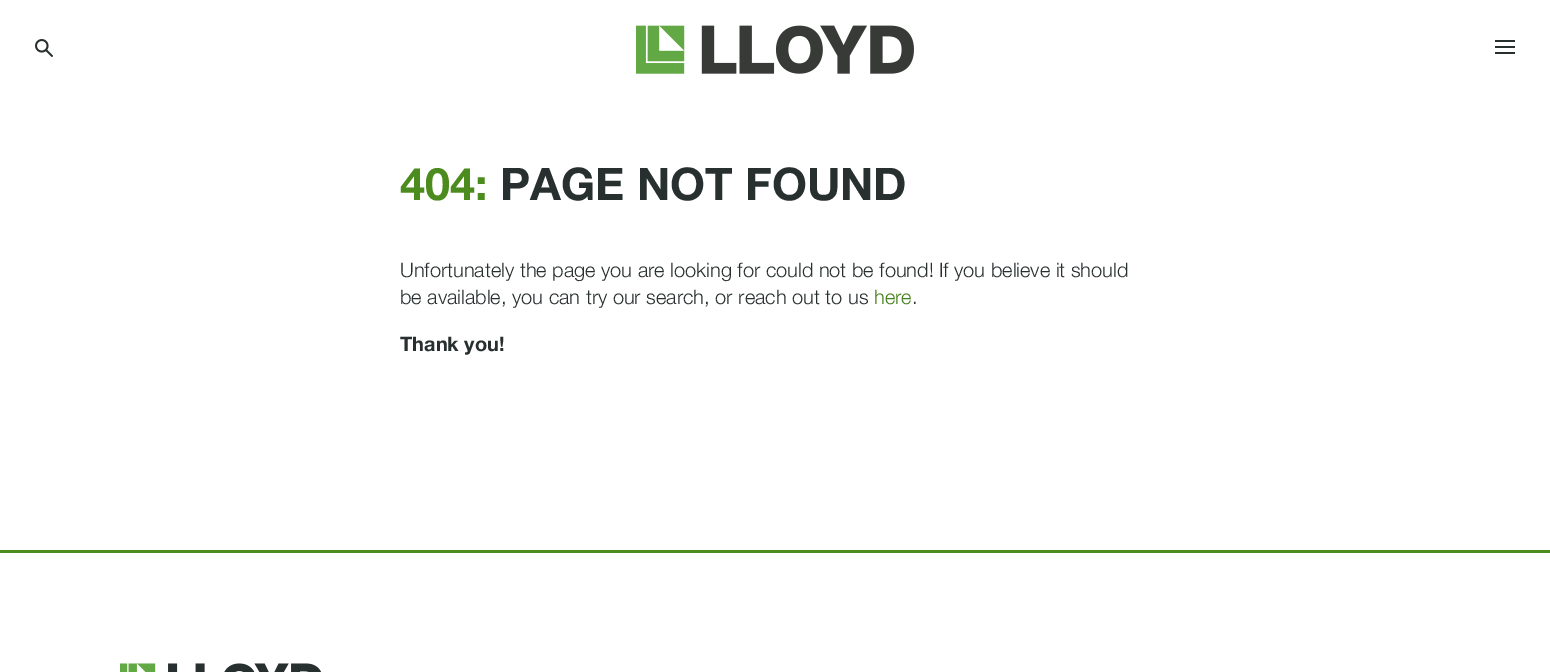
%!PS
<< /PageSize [1550 672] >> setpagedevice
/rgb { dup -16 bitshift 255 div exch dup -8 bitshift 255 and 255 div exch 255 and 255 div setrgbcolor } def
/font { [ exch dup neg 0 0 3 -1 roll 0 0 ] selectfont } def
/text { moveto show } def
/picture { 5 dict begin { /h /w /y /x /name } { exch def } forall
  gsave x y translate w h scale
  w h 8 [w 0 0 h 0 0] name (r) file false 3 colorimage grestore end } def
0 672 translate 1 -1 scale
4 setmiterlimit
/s1 { /HelveticaNeue-Bold 45 font 16#4C8C1E rgb } def
/s2 { /HelveticaNeue-Bold 45 font 16#282F2F rgb } def
/s3 { /HelveticaNeue-Light 20 font 16#282F2F rgb } def
/s4 { /HelveticaNeue-Light 20 font 16#467F1B rgb } def
/s5 { /HelveticaNeue-Bold 20 font 16#282F2F rgb } def
16#FFFFFF rgb
0 0 1550 672 rectfill
(pic1.raw) 35 39 18 18 picture
(pic2.raw) 636 25 278 49 picture
16#282F2F rgb
1495 40 20 2 rectfill
1495 52 20 2 rectfill
1495 46 20 2 rectfill
s1
(404:) 400 200 text
s2
(PAGE NOT FOUND) 500 200 text
s3
(Unfortunately the page you are looking for could not be found! If you believe it should) 400 277 text
(be available, you can try our search, or reach out to us) 400 304 text
s4
(here) 874 304 text
s3
(.) 912 304 text
s5
(Thank you!) 400 351 text
16#4C8C1E rgb
0 550 1550 3 rectfill
(pic3.raw) 120 663 202 9 picture
showpage
